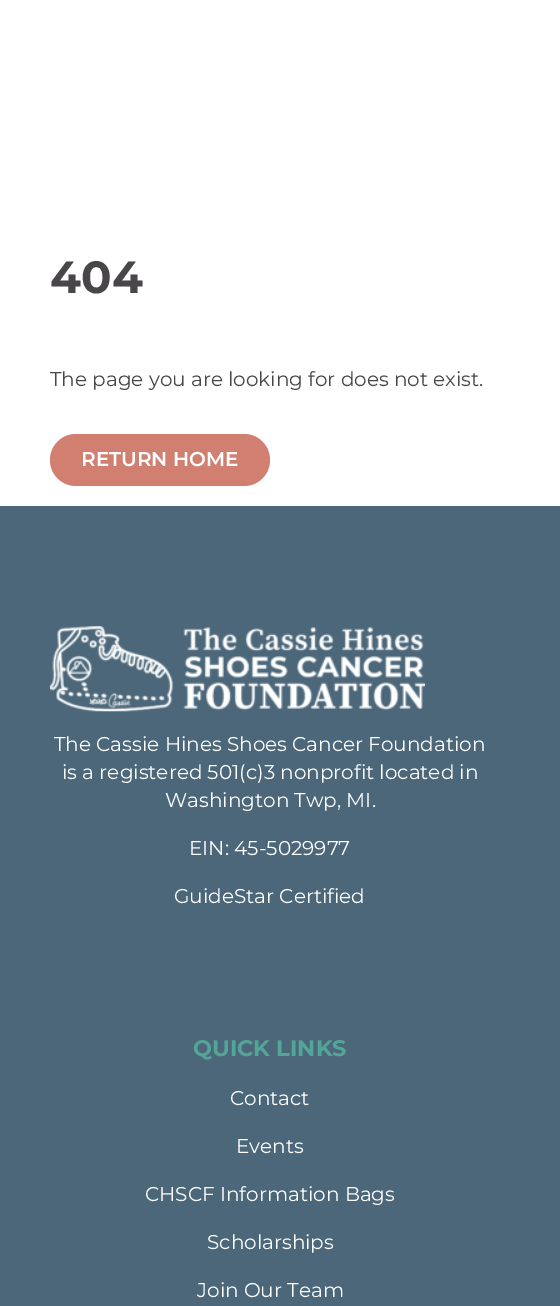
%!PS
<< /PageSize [560 1306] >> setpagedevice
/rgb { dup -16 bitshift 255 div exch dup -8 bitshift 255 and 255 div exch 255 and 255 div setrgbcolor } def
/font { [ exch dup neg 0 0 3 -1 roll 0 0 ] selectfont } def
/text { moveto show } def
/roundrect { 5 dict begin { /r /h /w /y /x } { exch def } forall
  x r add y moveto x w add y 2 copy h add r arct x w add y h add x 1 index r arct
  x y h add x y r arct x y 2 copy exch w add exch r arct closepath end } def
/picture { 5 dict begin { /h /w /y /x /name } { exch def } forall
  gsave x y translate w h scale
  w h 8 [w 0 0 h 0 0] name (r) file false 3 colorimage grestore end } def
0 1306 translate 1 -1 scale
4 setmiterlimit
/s1 { /Montserrat-Bold 45 font 16#484649 rgb } def
/s2 { /Montserrat-Regular 20 font 16#484649 rgb } def
/s3 { /Montserrat-SemiBold 20 font 16#FFFFFF rgb } def
/s4 { /Montserrat-Regular 20 font 16#FFFFFF rgb } def
/s5 { /Montserrat-Bold 22.5 font 16#52A597 rgb } def
16#FFFFFF rgb
0 0 560 1306 rectfill
s1
(404) 50 293 text
s2
(The page you are looking for does not exist.) 50 386 text
16#D17F71 rgb
50 434 220 52 26 roundrect fill
s3
(RETURN HOME) 81 466 text
16#4B6779 rgb
0 506 560 800 rectfill
(pic1.raw) 50 626 375 86 picture
s4
(The Cassie Hines Shoes Cancer Foundation) 54 751 text
(is a registered 501\(c\)3 nonprofit located in) 62 779 text
(Washington Twp, MI.) 165 807 text
(EIN: 45-5029977) 189 855 text
(GuideStar Certified) 174 903 text
s5
(QUICK LINKS) 193 1056 text
s4
(Contact) 230 1105 text
(Events) 236 1153 text
(CHSCF Information Bags) 145 1201 text
(Scholarships) 207 1249 text
(Join Our Team) 197 1297 text
showpage
